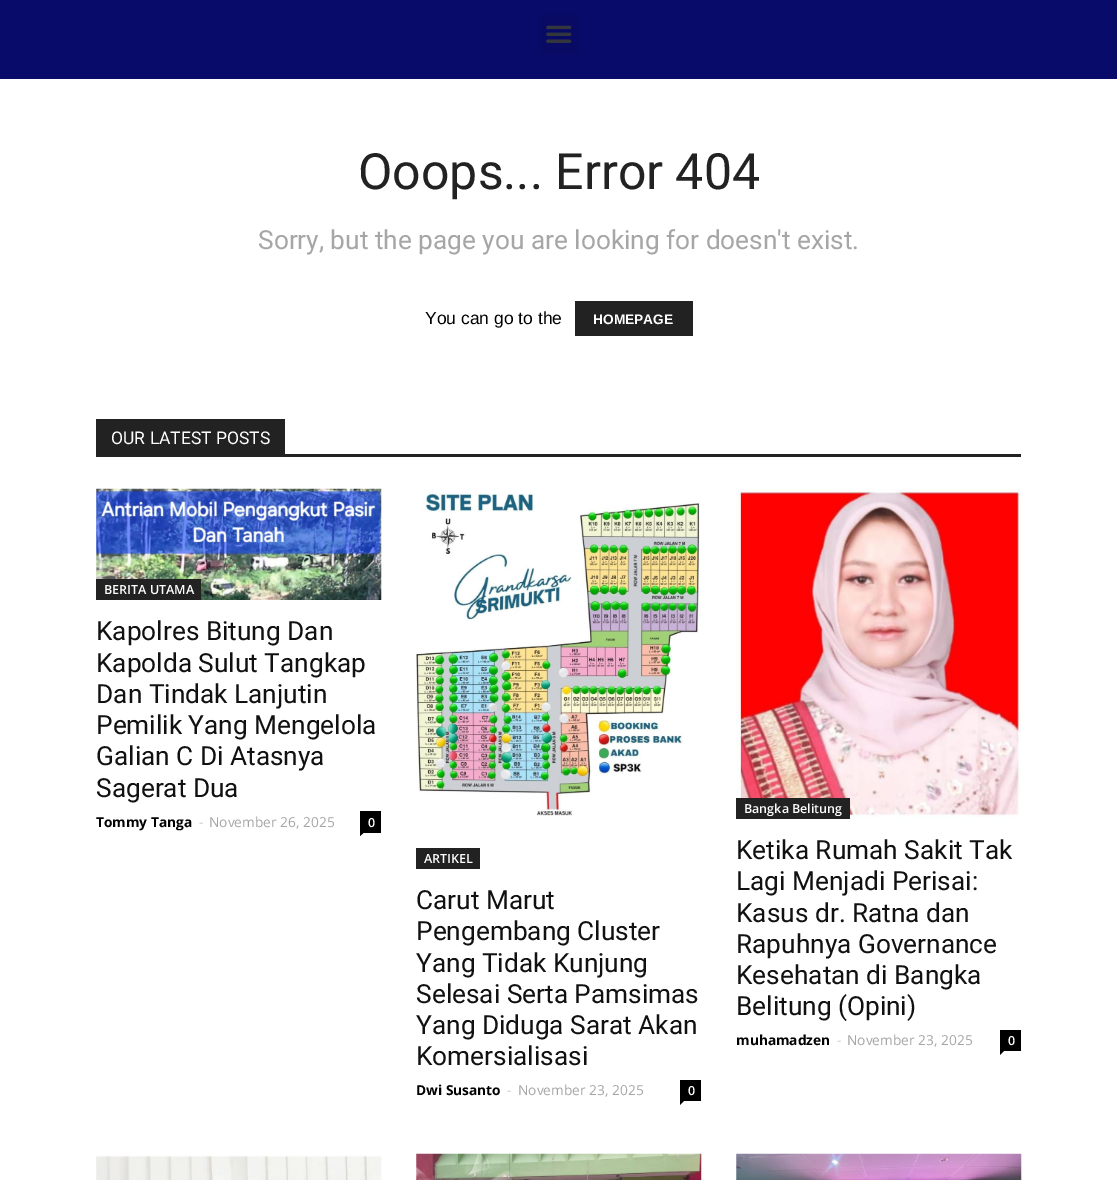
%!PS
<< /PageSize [1117 1180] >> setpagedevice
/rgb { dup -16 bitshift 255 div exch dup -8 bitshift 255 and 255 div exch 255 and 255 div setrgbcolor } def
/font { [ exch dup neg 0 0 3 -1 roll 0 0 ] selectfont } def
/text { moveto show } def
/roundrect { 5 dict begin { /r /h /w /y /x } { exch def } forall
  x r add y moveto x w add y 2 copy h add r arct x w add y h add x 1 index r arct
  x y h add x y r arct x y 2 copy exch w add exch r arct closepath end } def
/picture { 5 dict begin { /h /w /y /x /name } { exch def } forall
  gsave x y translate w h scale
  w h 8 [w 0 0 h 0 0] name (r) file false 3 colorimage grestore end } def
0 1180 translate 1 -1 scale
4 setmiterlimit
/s1 { /Roboto-Regular 50 font 16#222222 rgb } def
/s2 { /Roboto-Regular 26.25 font 16#A6A6A6 rgb } def
/s3 { /LiberationSans-Regular 17.5 font 16#000000 rgb } def
/s4 { /LiberationSans-Bold 13.75 font 16#FFFFFF rgb } def
/s5 { /Roboto-Regular 17.5 font 16#FFFFFF rgb } def
/s6 { /OpenSans-SemiBold 12.5 font 16#FFFFFF rgb } def
/s7 { /Roboto-Regular 26.25 font 16#111111 rgb } def
/s8 { /OpenSans-Bold 13.75 font 16#000000 rgb } def
/s9 { /OpenSans-Regular 13.75 font 16#CCCCCC rgb } def
/s10 { /OpenSans-Regular 13.75 font 16#A6A6A6 rgb } def
16#FFFFFF rgb
0 0 1117 1180 rectfill
16#080B69 rgb
0 0 1117 79 rectfill
16#080A64 rgb
539 13 41 41 4 roundrect fill
(pic1.raw) 546 25 26 18 picture
s1
(Ooops... Error 404) 358 189 text
s2
(Sorry, but the page you are looking for doesn't exist.) 258 249 text
s3
(You can go to the) 425 324 text
16#222222 rgb
575 301 118 35 rectfill
s4
(HOMEPAGE) 593 324 text
16#222222 rgb
96 454 925 3 rectfill
96 419 189 35 rectfill
s5
(OUR LATEST POSTS) 111 444 text
(pic2.raw) 96 488 286 112 picture
16#222222 rgb
96 579 105 21 rectfill
s6
(BERITA UTAMA) 104 594 text
s7
(Kapolres Bitung Dan) 96 640 text
(Kapolda Sulut Tangkap) 96 672 text
(Dan Tindak Lanjutin) 96 703 text
(Pemilik Yang Mengelola) 96 734 text
(Galian C Di Atasnya) 96 765 text
(Sagerat Dua) 96 797 text
s8
(Tommy Tanga) 96 827 text
s9
(-) 199 827 text
s10
(November 26, 2025) 209 827 text
16#000000 rgb
360 811 21 22 rectfill
s6
(0) 368 827 text
16#000000 rgb
360 832.5 moveto 364 832.5 lineto 360 836 lineto closepath fill
(pic3.raw) 416 492 285 324 picture
16#222222 rgb
416 848 64 21 rectfill
s6
(ARTIKEL) 424 863 text
s7
(Carut Marut) 416 909 text
(Pengembang Cluster) 416 940 text
(Yang Tidak Kunjung) 416 972 text
(Selesai Serta Pamsimas) 416 1003 text
(Yang Diduga Sarat Akan) 416 1034 text
(Komersialisasi) 416 1065 text
s8
(Dwi Susanto) 416 1095 text
s9
(-) 507 1095 text
s10
(November 23, 2025) 518 1095 text
16#000000 rgb
680 1080 21 21 rectfill
s6
(0) 688 1095 text
16#000000 rgb
680 1101 moveto 684 1101 lineto 680 1105 lineto closepath fill
(pic4.raw) 736 489 285 330 picture
16#222222 rgb
736 798 114 21 rectfill
s6
(Bangka Belitung) 744 813 text
s7
(Ketika Rumah Sakit Tak) 736 859 text
(Lagi Menjadi Perisai:) 736 890 text
(Kasus dr. Ratna dan) 736 922 text
(Rapuhnya Governance) 736 953 text
(Kesehatan di Bangka) 736 984 text
(Belitung \(Opini\)) 736 1015 text
s8
(muhamadzen) 736 1045 text
s9
(-) 837 1045 text
s10
(November 23, 2025) 847 1045 text
16#000000 rgb
1000 1030 21 21 rectfill
s6
(0) 1008 1045 text
16#000000 rgb
1000 1051 moveto 1004 1051 lineto 1000 1055 lineto closepath fill
(pic5.raw) 96 1155 286 25 picture
(pic6.raw) 416 1153 286 27 picture
(pic7.raw) 736 1153 286 27 picture
showpage
